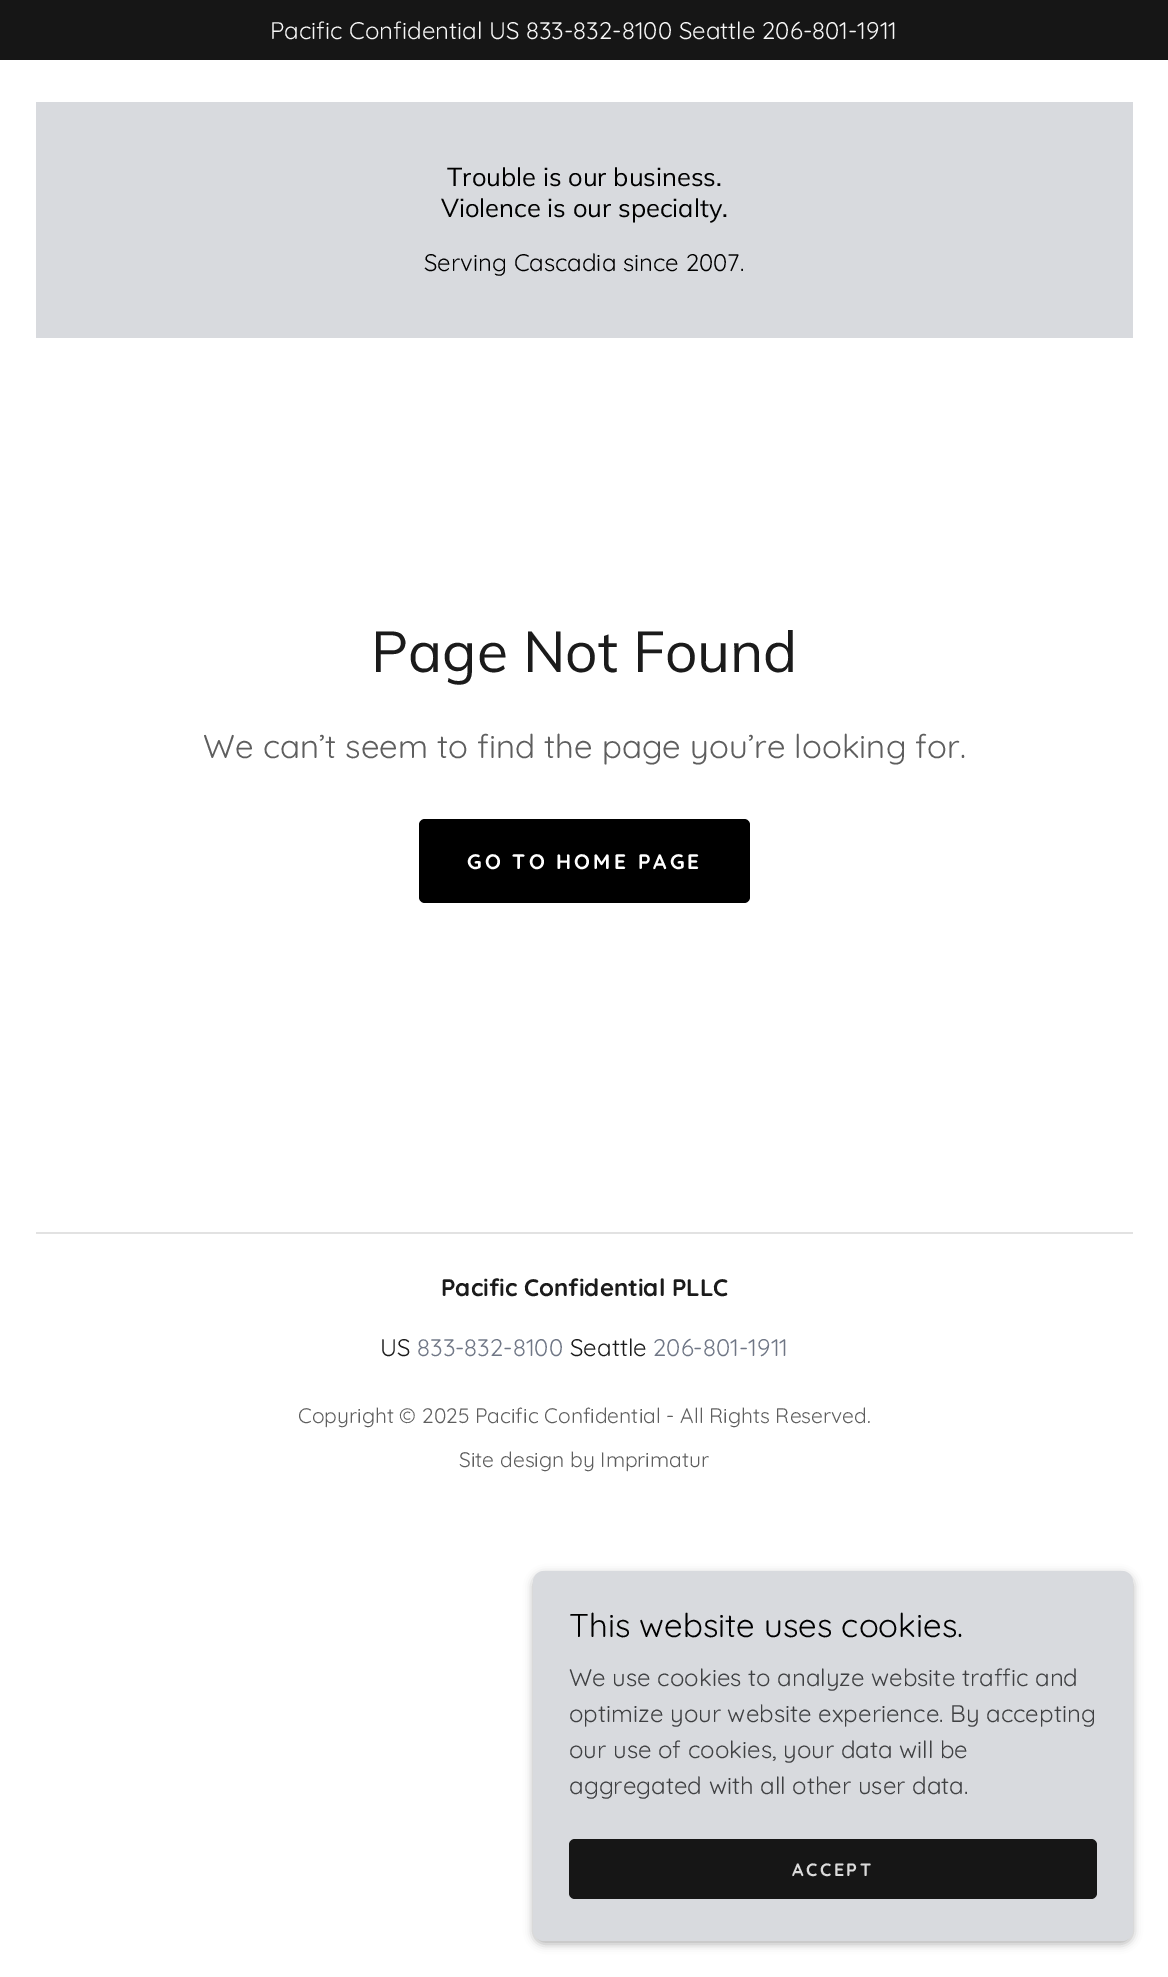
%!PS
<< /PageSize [1168 1977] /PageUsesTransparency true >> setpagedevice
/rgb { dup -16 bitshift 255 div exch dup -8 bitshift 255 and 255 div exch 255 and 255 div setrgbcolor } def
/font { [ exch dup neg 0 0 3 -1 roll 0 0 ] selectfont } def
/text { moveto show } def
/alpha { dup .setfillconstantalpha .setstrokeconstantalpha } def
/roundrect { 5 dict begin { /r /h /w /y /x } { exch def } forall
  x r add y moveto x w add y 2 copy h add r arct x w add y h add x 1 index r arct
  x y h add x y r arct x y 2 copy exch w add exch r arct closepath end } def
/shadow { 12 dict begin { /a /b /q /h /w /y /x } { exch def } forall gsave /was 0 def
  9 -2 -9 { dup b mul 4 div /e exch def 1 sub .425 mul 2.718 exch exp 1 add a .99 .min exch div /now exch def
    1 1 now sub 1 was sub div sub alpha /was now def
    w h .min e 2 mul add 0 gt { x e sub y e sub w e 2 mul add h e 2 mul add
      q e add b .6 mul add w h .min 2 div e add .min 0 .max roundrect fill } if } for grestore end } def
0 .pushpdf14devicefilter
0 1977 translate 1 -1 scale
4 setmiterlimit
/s1 { /Quicksand-Regular 24 font 16#F7F7F7 rgb } def
/s2 { /Muli-Regular 25.5 font 16#000000 rgb } def
/s3 { /Quicksand-Regular 24 font 16#000000 rgb } def
/s4 { /Muli-Regular 57 font 16#1B1B1B rgb } def
/s5 { /Quicksand-Regular 33 font 16#5E5E5E rgb } def
/s6 { /Quicksand-Bold 24 font 16#1B1B1B rgb } def
/s7 { /Quicksand-Regular 24 font 16#1B1B1B rgb } def
/s8 { /Quicksand-Regular 24 font 16#6F7685 rgb } def
/s9 { /Quicksand-Regular 21 font 16#5E5E5E rgb } def
/s10 { /Quicksand-Regular 33 font 16#000000 rgb } def
/s11 { /Quicksand-Regular 24 font 16#3F4042 rgb } def
16#FFFFFF rgb
0 0 1168 1977 rectfill
16#161616 rgb
0 0 1168 60 rectfill
s1
(Pacific Confidential US 833-832-8100 Seattle 206-801-1911) 270 39 text
16#D8DADE rgb
36 102 1097 236 rectfill
s2
(Trouble is our business.) 447 186 text
(Violence is our specialty.) 441 217 text
s3
(Serving Cascadia since 2007.) 424 271 text
s4
(Page Not Found) 371 672 text
s5
(We can’t seem to find the page you’re looking for.) 203 758 text
16#000000 rgb
419 819 331 84 6 roundrect fill
/Quicksand-Bold 21 font
16#FFFFFF rgb
467 869 moveto 3 0 (GO TO HOME PAGE) ashow
16#E2E2E2 rgb
36 1232 1097 2 rectfill
s6
(Pacific Confidential PLLC) 441 1296 text
s7
(US) 380 1356 text
s8
(833-832-8100) 417 1356 text
s7
(Seattle) 570 1356 text
s8
(206-801-1911) 653 1356 text
s9
(Copyright © 2025 Pacific Confidential - All Rights Reserved.) 298 1423 text
(Site design by Imprimatur) 459 1467 text
16#000000 rgb
533 1574 600 370 11 4.5 0.3 shadow
16#D8DADE rgb
533 1571 600 370 11 roundrect fill
s10
(This website uses cookies.) 569 1637 text
s11
(We use cookies to analyze website traffic and) 569 1686 text
(optimize your website experience. By accepting) 569 1722 text
(our use of cookies, your data will be) 569 1758 text
(aggregated with all other user data.) 569 1794 text
16#161616 rgb
569 1839 528 60 6 roundrect fill
/Quicksand-Bold 18 font
16#DBDBDB rgb
792 1876 moveto 2.5 0 (ACCEPT) ashow
.poppdf14devicefilter showpage
